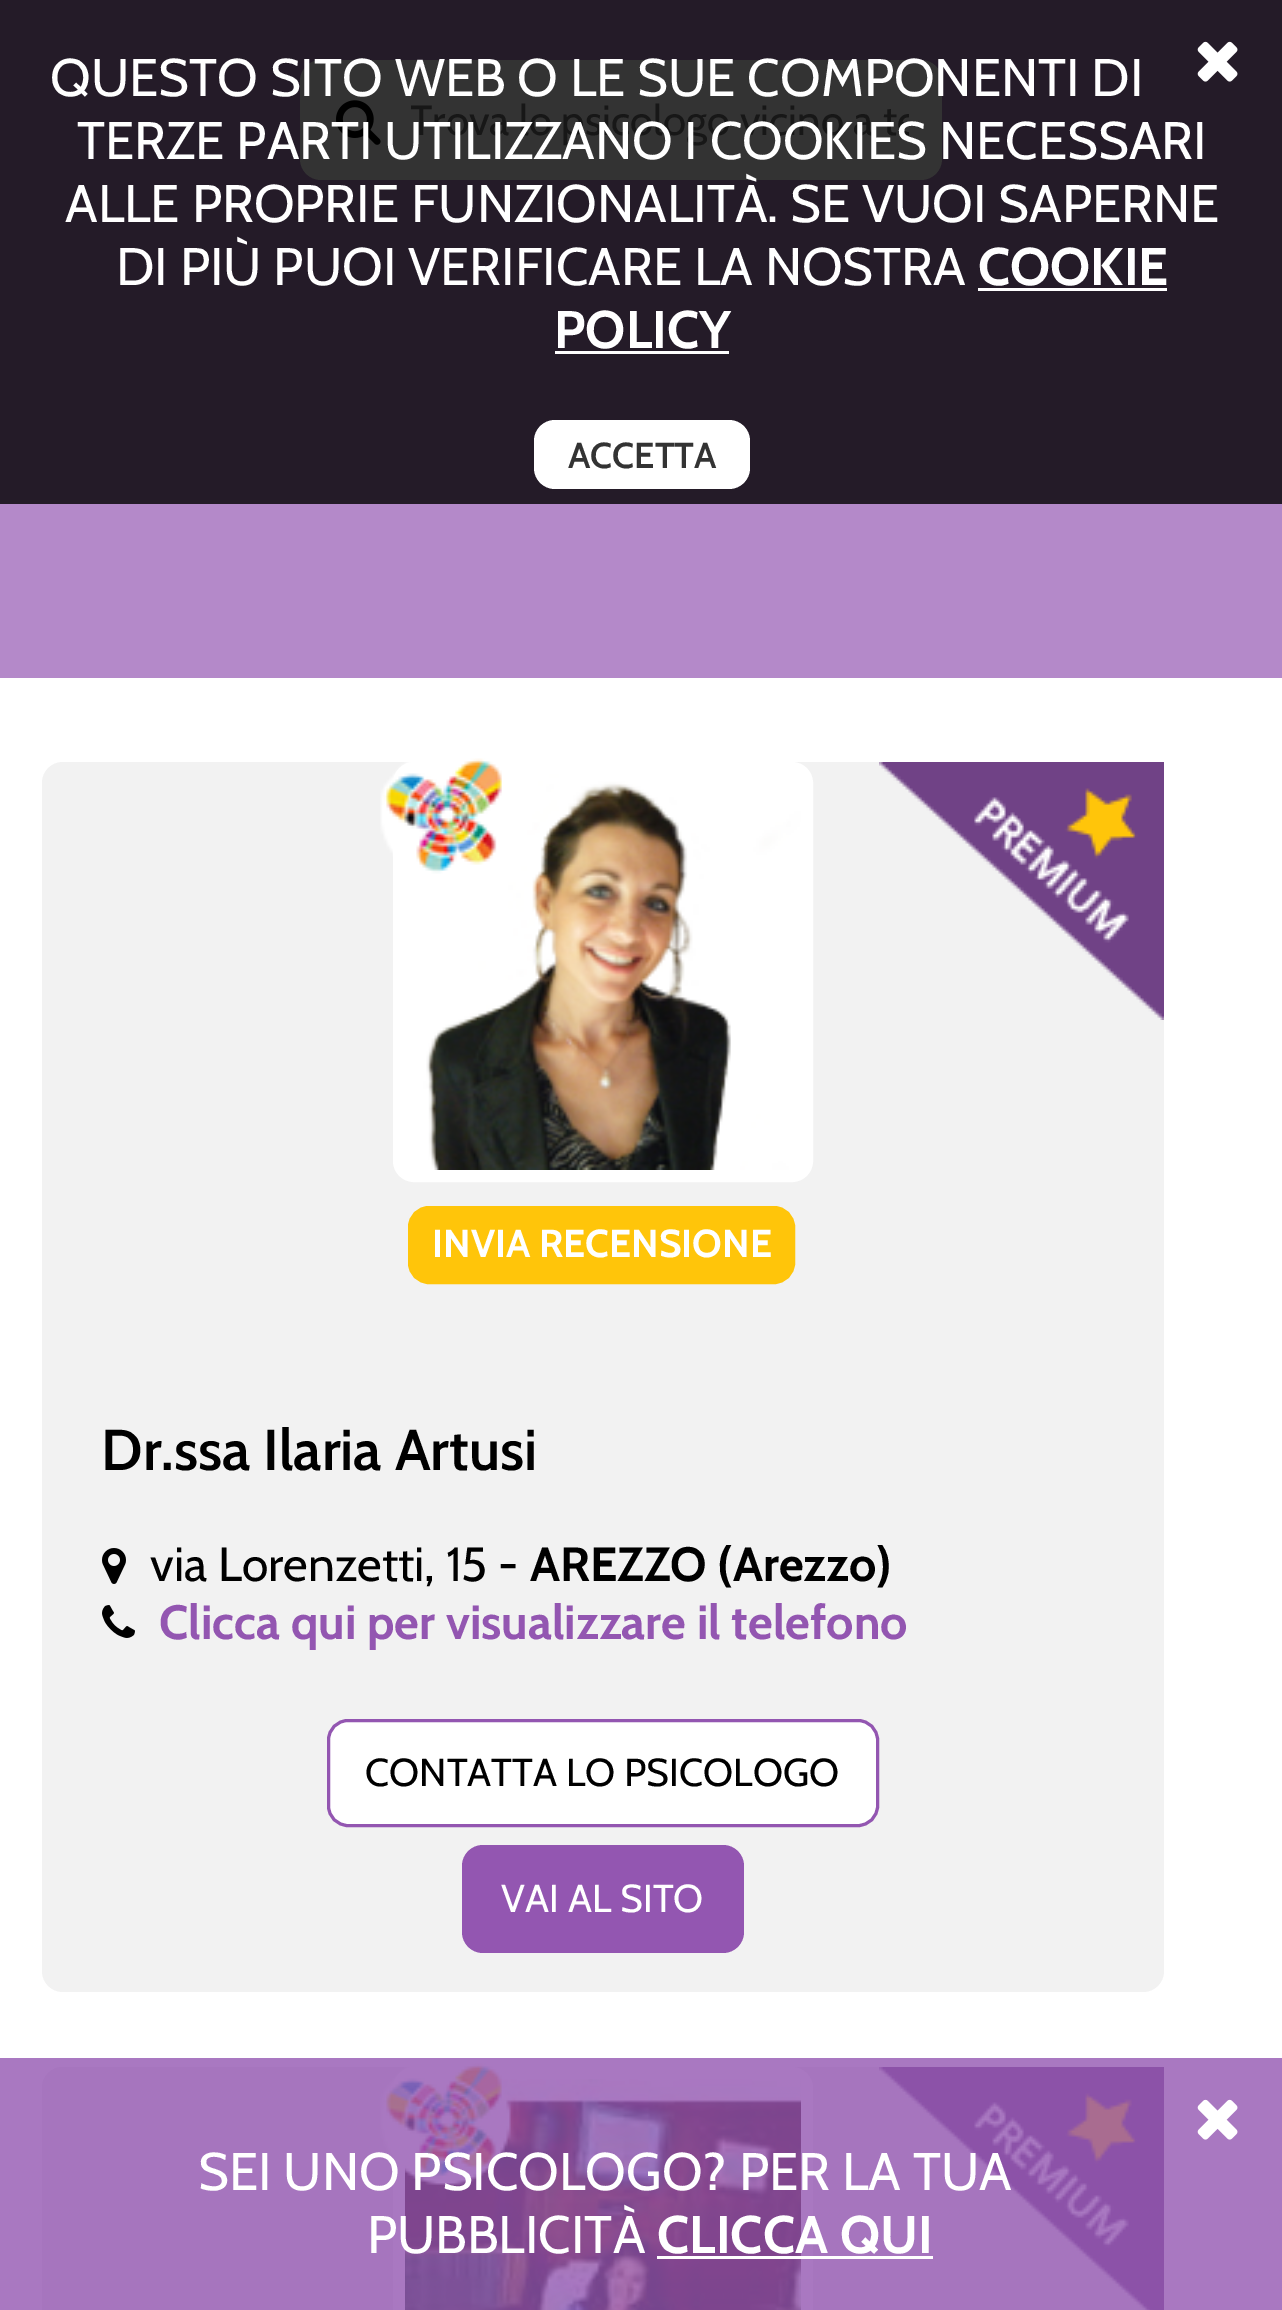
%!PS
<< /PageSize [1282 2310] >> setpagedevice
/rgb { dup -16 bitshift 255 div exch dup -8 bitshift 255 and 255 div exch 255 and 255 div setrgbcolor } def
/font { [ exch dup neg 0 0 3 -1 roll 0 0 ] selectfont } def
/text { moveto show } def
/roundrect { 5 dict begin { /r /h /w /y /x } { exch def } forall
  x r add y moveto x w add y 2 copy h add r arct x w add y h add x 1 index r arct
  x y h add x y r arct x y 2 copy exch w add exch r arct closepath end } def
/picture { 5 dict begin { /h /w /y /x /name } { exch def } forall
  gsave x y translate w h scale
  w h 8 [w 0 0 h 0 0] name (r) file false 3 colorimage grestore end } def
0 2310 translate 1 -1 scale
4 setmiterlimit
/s1 { /Cabin-Regular 52.8 font 16#FFFFFF rgb } def
/s2 { /Cabin-Regular 42 font 16#171717 rgb } def
/s3 { /Cabin-Bold 52.8 font 16#FFFFFF rgb } def
/s4 { /Cabin-SemiBold 36 font 16#333333 rgb } def
/s5 { /Cabin-Bold 39 font 16#FFFFFF rgb } def
/s6 { /Cabin-SemiBold 57.5 font 16#000000 rgb } def
/s7 { /Cabin-Regular 48 font 16#000000 rgb } def
/s8 { /Cabin-Bold 48 font 16#000000 rgb } def
/s9 { /Cabin-Bold 48 font 16#9356B1 rgb } def
/s10 { /Cabin-Regular 39 font 16#000000 rgb } def
/s11 { /Cabin-Regular 39 font 16#FFFFFF rgb } def
16#FFFFFF rgb
0 0 1282 2310 rectfill
16#A978C1 rgb
0 2058 1282 252 rectfill
16#241B28 rgb
0 0 1282 504 rectfill
(pic1.raw) 1197 41 41 41 picture
16#333333 rgb
300 60 642 120 21 roundrect fill
s1
(QUESTO SITO WEB O LE SUE COMPONENTI DI) 50 96 text
(pic2.raw) 336 100 45 45 picture
gsave
411 93 498 54 rectclip
s2
(Trova lo psicologo vicino a te) 410 135 text
grestore
(TERZE PARTI UTILIZZANO I COOKIES NECESSARI) 77 159 text
(ALLE PROPRIE FUNZIONALITÀ. SE VUOI SAPERNE) 65 222 text
(DI PIÙ PUOI VERIFICARE LA NOSTRA) 116 285 text
s3
(COOKIE) 978 285 text
978 288 189 3 rectfill
(POLICY) 554 348 text
555 351 174 3 rectfill
534 420 216 69 21 roundrect fill
s4
(ACCETTA) 568 468 text
16#B489C9 rgb
0 504 1282 174 rectfill
16#F2F2F2 rgb
42 762 1122 1230 21 roundrect fill
(pic3.raw) 879 762 285 258 picture
16#FFFFFF rgb
12 setlinewidth
399 768 408 408 15 roundrect stroke
(pic5.raw) 405 774 396 396 picture
(pic4.raw) 380 758 122 116 picture
16#FFC50A rgb
409.5 1207.5 384 75 19.5 roundrect gsave fill grestore
3 setlinewidth
stroke
s5
(INVIA RECENSIONE) 432 1257 text
s6
(Dr.ssa Ilaria Artusi) 101 1470 text
(pic6.raw) 102 1548 24 36 picture
s7
(via Lorenzetti, 15 -) 150 1581 text
s8
(AREZZO \(Arezzo\)) 530 1581 text
(pic7.raw) 102 1605 33 33 picture
gsave
102 1593 1032 57 rectclip
s9
(Clicca qui per visualizzare il telefono) 159 1639 text
grestore
16#FFFFFF rgb
328.5 1720.5 549 105 19.5 roundrect gsave fill grestore
16#9356B1 rgb
stroke
s10
(CONTATTA LO PSICOLOGO) 365 1786 text
16#9356B1 rgb
462 1845 282 108 21 roundrect fill
s11
(VAI AL SITO) 501 1912 text
16#A675BE rgb
42 2067 1122 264 21 roundrect fill
16#A978C1 rgb
12 setlinewidth
399 2073 408 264 15 roundrect stroke
(pic9.raw) 405 2079 396 231 picture
(pic8.raw) 380 2063 131 122 picture
(pic10.raw) 879 2067 285 243 picture
(pic11.raw) 1197 2099 41 41 picture
s1
(SEI UNO PSICOLOGO? PER LA TUA) 198 2190 text
(PUBBLICITÀ) 367 2253 text
s3
(CLICCA QUI) 657 2253 text
657 2256 276 3 rectfill
showpage
